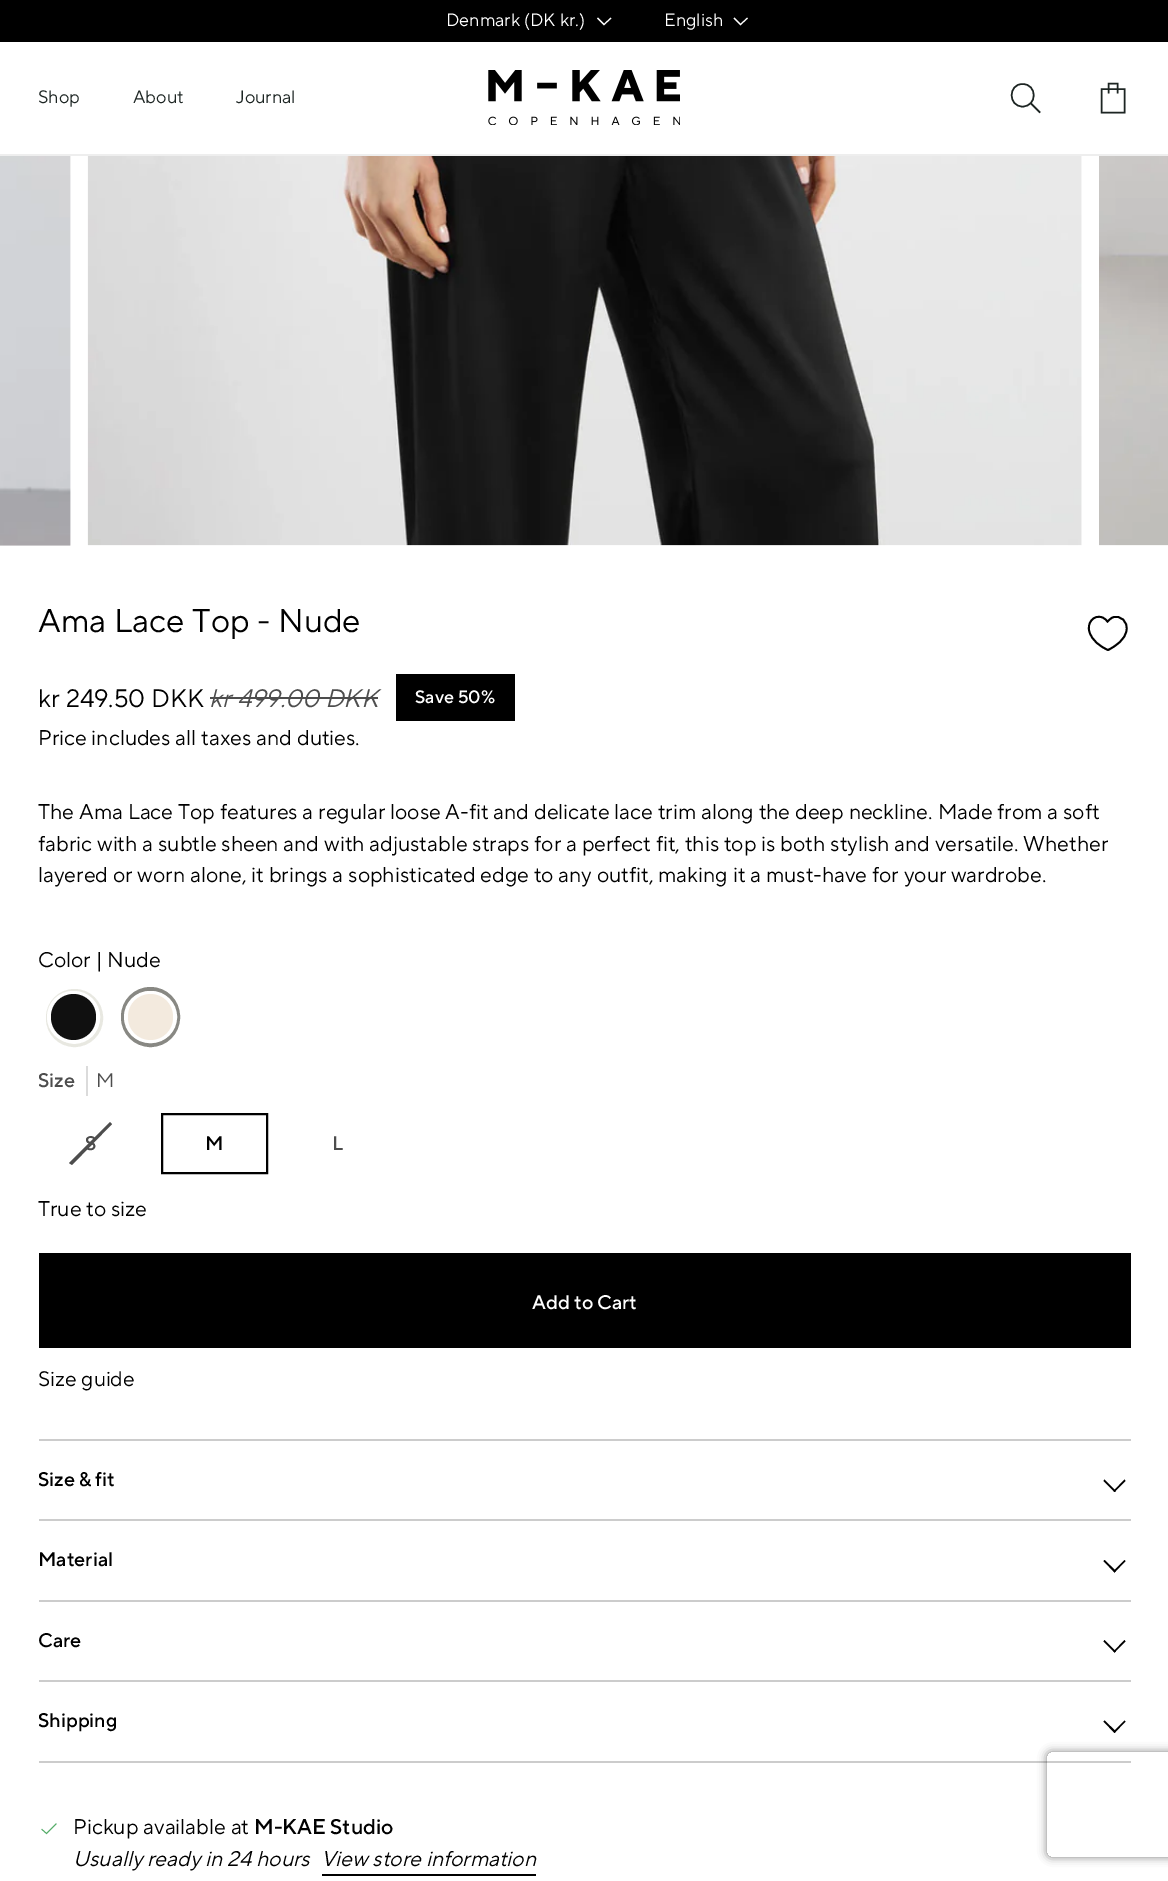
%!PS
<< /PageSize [1168 1881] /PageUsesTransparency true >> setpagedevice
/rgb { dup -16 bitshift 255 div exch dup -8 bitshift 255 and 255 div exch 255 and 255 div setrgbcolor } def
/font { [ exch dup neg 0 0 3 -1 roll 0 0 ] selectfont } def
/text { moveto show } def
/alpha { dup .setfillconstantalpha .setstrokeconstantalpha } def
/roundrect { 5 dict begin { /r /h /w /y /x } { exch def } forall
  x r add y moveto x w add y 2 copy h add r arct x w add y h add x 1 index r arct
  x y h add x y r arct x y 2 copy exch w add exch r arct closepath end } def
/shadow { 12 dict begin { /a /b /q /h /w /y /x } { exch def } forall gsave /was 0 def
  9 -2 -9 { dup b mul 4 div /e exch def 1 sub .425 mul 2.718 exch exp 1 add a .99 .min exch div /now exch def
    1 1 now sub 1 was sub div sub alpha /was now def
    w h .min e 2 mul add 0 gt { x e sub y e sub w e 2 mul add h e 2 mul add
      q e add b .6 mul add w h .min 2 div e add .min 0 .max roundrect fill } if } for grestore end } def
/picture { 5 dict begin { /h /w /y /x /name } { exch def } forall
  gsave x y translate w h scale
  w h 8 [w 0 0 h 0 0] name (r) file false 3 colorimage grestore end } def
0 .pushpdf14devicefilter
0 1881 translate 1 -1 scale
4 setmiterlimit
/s1 { /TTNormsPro-Regular 18 font 16#FFFFFF rgb } def
/s2 { /TTNormsPro-Regular 18 font 16#1D2523 rgb } def
/s3 { /TTNormsPro-Regular 33 font 16#000000 rgb } def
/s4 { /TTNormsPro-Regular 25.25 font 16#000000 rgb } def
/s5 { /TTNormsPro-Italic 25.25 font 16#4D4D4D rgb } def
/s6 { /TTNormsPro-Medium 18 font 16#FFFFFF rgb } def
/s7 { /TTNormsPro-Regular 21.25 font 16#000000 rgb } def
/s8 { /TTNormsPro-Medium 19.75 font 16#4D4D4D rgb } def
/s9 { /TTNormsPro-Regular 19.75 font 16#4D4D4D rgb } def
/s10 { /TTNormsPro-Medium 19.75 font 16#000000 rgb } def
/s11 { /TTNormsPro-Medium 19.75 font 16#FFFFFF rgb } def
/s12 { /TTNormsPro-Regular 21 font 16#000000 rgb } def
/s13 { /TTNormsPro-Medium 21.25 font 16#000000 rgb } def
/s14 { /TTNormsPro-Italic 21.25 font 16#000000 rgb } def
16#FFFFFF rgb
0 0 1168 1881 rectfill
16#EEEEEE rgb
0 154 1168 2 rectfill
16#000000 rgb
0 0 1168 42 rectfill
s1
(Denmark \(DK kr.\)) 446 26 text
1.1 setlinewidth
2 setlinecap
598 18.5 moveto 604 24.5 lineto 610.5 18.5 lineto stroke
(English) 664 26 text
734.5 18.5 moveto 740.5 24.5 lineto 747 18.5 lineto stroke
s2
(Shop) 38 103 text
(About) 133 103 text
(Journal) 236 103 text
(pic1.raw) 488 70 192 55 picture
1.5 setlinewidth
1022.5 106.5 moveto 1037.5 106.5 1037.5 84 1022.5 84 curveto 1008 84 1008 106.5 1022.5 106.5 curveto closepath 1039.5 112 moveto 1031 103.5 lineto stroke
0 setlinecap
1101.5 89 moveto 1124.5 89 lineto 1124.5 112.5 lineto 1101.5 112.5 lineto closepath 1108.5 93.5 moveto 1108.5 83.5 lineto 1117.5 83.5 lineto 1117.5 93.5 lineto stroke
16#F2F2F2 rgb
0 545 70 1 rectfill
(pic3.raw) 70 156 1 390 picture
(pic2.raw) 0 156 71 390 picture
(pic4.raw) 87 156 995 390 picture
(pic5.raw) 1099 156 69 390 picture
s3
(Ama Lace Top - Nude) 38 632 text
1.8 setlinewidth
1108 650 moveto 1100 646.5 1092 640.5 1089.5 632 curveto 1086.5 623.5 1093.5 614 1102.5 617.5 curveto 1105 618.5 1106 620 1107.5 621.5 curveto 1109 620 1110.5 618.5 1112.5 617.5 curveto 1121 614.5 1128 622 1126.5 630 curveto 1125.5 639.5 1116 646 1108 650 curveto closepath stroke
s4
(kr 249.50 DKK) 38 707 text
s5
(kr 499.00 DKK) 209 707 text
210 697 168 2 rectfill
16#000000 rgb
396 674 119 47 rectfill
s6
(Save 50%) 415 703 text
s7
(Price includes all taxes and duties.) 38 745 text
(The Ama Lace Top features a regular loose A-fit and delicate lace trim along the deep neckline. Made from a soft) 38 819 text
(fabric with a subtle sheen and with adjustable straps for a perfect fit, this top is both stylish and versatile. Whether) 38 851 text
(layered or worn alone, it brings a sophisticated edge to any outfit, making it a must-have for your wardrobe.) 38 882 text
(Color | Nude) 38 967 text
16#E8E8E1 rgb
3 setlinewidth
47.5 990.5 54 55 27 roundrect stroke
16#FFFFFF rgb
4 setlinewidth
49 993 49 48 24 roundrect stroke
16#101010 rgb
51 994 45 46 22.5 roundrect fill
16#888883 rgb
123 989 55 56 27.5 roundrect stroke
16#FFFFFF rgb
126 993 49 48 24 roundrect stroke
16#F3EADE rgb
128 994 45 46 22.5 roundrect fill
gsave
39 1066 36 30 rectclip
s8
(Size) 38 1087 text
grestore
16#DBDBDB rgb
86 1066 2 30 rectfill
s9
(M) 96 1087 text
110 1122 moveto 112 1124 lineto 72 1165 lineto 69 1163 lineto closepath fill
s8
(S) 85 1150 text
16#000000 rgb
2 setlinewidth
162 1114 105 59 rectstroke
(M) 205 1150 text
s8
(L) 332 1150 text
s7
(True to size) 38 1216 text
39 1253 1092 95 rectfill
s11
(Add to Cart) 532 1309 text
s12
(Size guide) 38 1386 text
16#CCCCCC rgb
39 1439 1092 2 rectfill
39 1519 1092 2 rectfill
gsave
39 1440 1092 79 rectclip
s10
(Size & fit) 38 1486 text
grestore
16#000000 rgb
1113.5 1491 moveto 1124.5 1479.5 lineto 1125.5 1481 lineto 1114.5 1492 lineto closepath fill
1103.5 1481 moveto 1104.5 1479.5 lineto 1116 1491 lineto 1114.5 1492 lineto closepath fill
16#CCCCCC rgb
39 1600 1092 2 rectfill
s10
(Material) 38 1566 text
1113.5 1571 moveto 1124.5 1560 lineto 1125.5 1561 lineto 1114.5 1572.5 lineto closepath fill
1103.5 1561 moveto 1104.5 1560 lineto 1116 1571 lineto 1114.5 1572.5 lineto closepath fill
16#CCCCCC rgb
39 1680 1092 2 rectfill
s10
(Care) 38 1647 text
1113.5 1651.5 moveto 1124.5 1640 lineto 1125.5 1641.5 lineto 1114.5 1652.5 lineto closepath fill
1103.5 1641.5 moveto 1104.5 1640 lineto 1116 1651.5 lineto 1114.5 1652.5 lineto closepath fill
gsave
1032 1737 moveto 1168 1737 lineto 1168 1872 lineto 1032 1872 lineto closepath 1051 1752 moveto 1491 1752 lineto 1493 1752 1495 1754 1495 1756 curveto 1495 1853 lineto 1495 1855 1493 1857 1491 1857 curveto 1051 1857 lineto 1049 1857 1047 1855 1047 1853 curveto 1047 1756 lineto 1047 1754 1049 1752 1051 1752 curveto closepath eoclip newpath
16#808080 rgb
1047 1752 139 105 4 4.5 1 shadow
grestore
0.2 alpha
39 1761 1092 2 rectfill
gsave
39 1682 1092 79 rectclip
1 alpha
(Shipping) 38 1727 text
grestore
1 alpha
1113.5 1731.5 moveto 1124.5 1720.5 lineto 1125.5 1721.5 lineto 1114.5 1733 lineto closepath fill
1103.5 1721.5 moveto 1104.5 1720.5 lineto 1116 1731.5 lineto 1114.5 1733 lineto closepath fill
16#56AD6A rgb
0.9 setlinewidth
2 setlinecap
56 1824 moveto 46.5 1833.5 lineto 42 1829.5 lineto stroke
s7
(Pickup available at) 73 1834 text
s13
(M-KAE Studio) 254 1834 text
s14
(Usually ready in 24 hours) 73 1866 text
(View store information) 321 1866 text
322 1874 214 2 rectfill
.poppdf14devicefilter showpage
